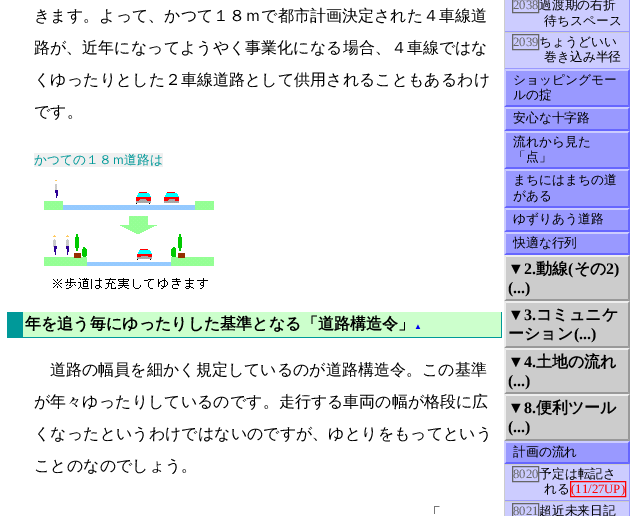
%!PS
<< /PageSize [632 516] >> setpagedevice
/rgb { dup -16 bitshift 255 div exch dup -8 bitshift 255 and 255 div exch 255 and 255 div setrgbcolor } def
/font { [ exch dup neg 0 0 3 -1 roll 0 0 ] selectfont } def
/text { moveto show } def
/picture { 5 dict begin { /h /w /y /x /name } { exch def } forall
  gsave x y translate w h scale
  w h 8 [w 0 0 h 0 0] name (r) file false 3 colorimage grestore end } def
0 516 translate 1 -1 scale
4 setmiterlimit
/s1 { /WenQuanYiZenHei-Medium 16 font 16#000000 rgb } def
/s2 { /WenQuanYiZenHei-Medium 12.75 font 16#009999 rgb } def
/s3 { /WenQuanYiZenHei-Bold 16 font 16#000000 rgb } def
/s4 { /LiberationSerif-Bold 8 font 16#0000EE rgb } def
/s5 { /LiberationSerif-Regular 12.75 font 16#666666 rgb } def
/s6 { /WenQuanYiZenHei-Medium 12.75 font 16#000000 rgb } def
/s7 { /LiberationSerif-Bold 16 font 16#000000 rgb } def
/s8 { /LiberationSerif-Regular 12.75 font 16#FF0000 rgb } def
16#FFFFFF rgb
0 0 632 516 rectfill
s1
(きます。よって、かつて１８ｍで都市計画決定された４車線道) 34 21 text
(路が、近年になってようやく事業化になる場合、４車線ではな) 34 53 text
(くゆったりとした２車線道路として供用されることもあるわけ) 34 85 text
(です。) 34 117 text
16#F0F0F0 rgb
34 153 129 14 rectfill
s2
(かつての１８ｍ道路は) 34 164 text
(pic1.raw) 44 180 170 109 picture
16#CCFFCC rgb
23 312 478 25 rectfill
16#009999 rgb
501 312 1 26 rectfill
23 337 479 1 rectfill
7 312 16 26 rectfill
s3
(年を追う毎にゆったりした基準となる「道路構造令」) 25 329 text
s4
(▲) 414 329 text
s1
(道路の幅員を細かく規定しているのが道路構造令。この基準) 50 375 text
(が年々ゆったりしているのです。走行する車両の幅が格段に広) 34 407 text
(くなったというわけではないのですが、ゆとりをもってという) 34 439 text
(ことのなのでしょう。) 34 471 text
(「) 425 519 text
16#CCCCFF rgb
505 0 124 31 rectfill
16#9999FF rgb
629 0 1 32 rectfill
504 31 126 1 rectfill
16#CCCCCC rgb
504 0 1 32 rectfill
16#666666 rgb
512.5 -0.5 26 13 rectstroke
s5
(2038) 513 9 text
s6
(過渡期の右折) 539 9 text
(待ちスペース) 544 25 text
16#CCCCFF rgb
505 33 124 35 rectfill
16#CCCCCC rgb
504 32 126 1 rectfill
16#9999FF rgb
629 32 1 37 rectfill
504 68 126 187 rectfill
16#CCCCCC rgb
504 32 1 37 rectfill
16#666666 rgb
512.5 34.5 26 15 rectstroke
s5
(2039) 513 46 text
s6
(ちょうどいい) 539 46 text
(巻き込み半径) 544 61 text
16#CCCCFF rgb
504 69 moveto 630 69 lineto 628 71 lineto 506 71 lineto closepath fill
16#6666FF rgb
630 69 moveto 630 107 lineto 628 105 lineto 628 71 lineto closepath fill
630 107 moveto 504 107 lineto 506 105 lineto 628 105 lineto closepath fill
16#CCCCFF rgb
504 107 moveto 504 69 lineto 506 71 lineto 506 105 lineto closepath fill
s6
(ショッピングモー) 513 84 text
(ルの掟) 513 99 text
16#CCCCFF rgb
504 107 moveto 630 107 lineto 628 109 lineto 506 109 lineto closepath fill
16#6666FF rgb
630 107 moveto 630 131 lineto 628 129 lineto 628 109 lineto closepath fill
630 131 moveto 504 131 lineto 506 129 lineto 628 129 lineto closepath fill
16#CCCCFF rgb
504 131 moveto 504 107 lineto 506 109 lineto 506 129 lineto closepath fill
s6
(安心な十字路) 513 122 text
16#CCCCFF rgb
504 131 moveto 630 131 lineto 628 133 lineto 506 133 lineto closepath fill
16#6666FF rgb
630 131 moveto 630 169 lineto 628 167 lineto 628 133 lineto closepath fill
630 169 moveto 504 169 lineto 506 167 lineto 628 167 lineto closepath fill
16#CCCCFF rgb
504 169 moveto 504 131 lineto 506 133 lineto 506 167 lineto closepath fill
s6
(流れから見た) 513 146 text
(「点」) 513 161 text
16#CCCCFF rgb
504 169 moveto 630 169 lineto 628 171 lineto 506 171 lineto closepath fill
16#6666FF rgb
630 169 moveto 630 208 lineto 628 206 lineto 628 171 lineto closepath fill
630 208 moveto 504 208 lineto 506 206 lineto 628 206 lineto closepath fill
16#CCCCFF rgb
504 208 moveto 504 169 lineto 506 171 lineto 506 206 lineto closepath fill
s6
(まちにはまちの道) 513 184 text
(がある) 513 200 text
16#CCCCFF rgb
504 208 moveto 630 208 lineto 628 210 lineto 506 210 lineto closepath fill
16#6666FF rgb
630 208 moveto 630 232 lineto 628 230 lineto 628 210 lineto closepath fill
630 232 moveto 504 232 lineto 506 230 lineto 628 230 lineto closepath fill
16#CCCCFF rgb
504 232 moveto 504 208 lineto 506 210 lineto 506 230 lineto closepath fill
s6
(ゆずりあう道路) 513 223 text
16#CCCCFF rgb
504 232 moveto 630 232 lineto 628 234 lineto 506 234 lineto closepath fill
16#6666FF rgb
630 232 moveto 630 255 lineto 628 253 lineto 628 234 lineto closepath fill
630 255 moveto 504 255 lineto 506 253 lineto 628 253 lineto closepath fill
16#CCCCFF rgb
504 255 moveto 504 232 lineto 506 234 lineto 506 253 lineto closepath fill
s6
(快適な行列) 513 247 text
16#CCCCCC rgb
504 255 126 186 rectfill
16#EEEEEE rgb
504 255 moveto 630 255 lineto 628 257 lineto 506 257 lineto closepath fill
16#999999 rgb
630 255 moveto 630 301 lineto 628 299 lineto 628 257 lineto closepath fill
630 301 moveto 504 301 lineto 506 299 lineto 628 299 lineto closepath fill
16#EEEEEE rgb
504 301 moveto 504 255 lineto 506 257 lineto 506 299 lineto closepath fill
s7
(▼2.) 508 274 text
s3
(動線) 536 274 text
s7
(\() 568 274 text
s3
(その) 574 274 text
s7
(2\)) 606 274 text
(\(...\)) 508 293 text
16#EEEEEE rgb
504 301 moveto 630 301 lineto 628 303 lineto 506 303 lineto closepath fill
16#999999 rgb
630 301 moveto 630 348 lineto 628 346 lineto 628 303 lineto closepath fill
630 348 moveto 504 348 lineto 506 346 lineto 628 346 lineto closepath fill
16#EEEEEE rgb
504 348 moveto 504 301 lineto 506 303 lineto 506 346 lineto closepath fill
s7
(▼3.) 508 320 text
s3
(コミュニケ) 536 320 text
(ーション) 508 339 text
s7
(\(...\)) 574 339 text
16#EEEEEE rgb
504 348 moveto 630 348 lineto 628 350 lineto 506 350 lineto closepath fill
16#999999 rgb
630 348 moveto 630 394 lineto 628 392 lineto 628 350 lineto closepath fill
630 394 moveto 504 394 lineto 506 392 lineto 628 392 lineto closepath fill
16#EEEEEE rgb
504 394 moveto 504 348 lineto 506 350 lineto 506 392 lineto closepath fill
s7
(▼4.) 508 367 text
s3
(土地の流れ) 536 367 text
s7
(\(...\)) 508 386 text
16#EEEEEE rgb
504 394 moveto 630 394 lineto 628 396 lineto 506 396 lineto closepath fill
16#999999 rgb
630 394 moveto 630 441 lineto 628 439 lineto 628 396 lineto closepath fill
630 441 moveto 504 441 lineto 506 439 lineto 628 439 lineto closepath fill
16#EEEEEE rgb
504 441 moveto 504 394 lineto 506 396 lineto 506 439 lineto closepath fill
s7
(▼8.) 508 413 text
s3
(便利ツール) 536 413 text
s7
(\(...\)) 508 432 text
16#9999FF rgb
504 441 126 23 rectfill
16#CCCCFF rgb
504 441 moveto 630 441 lineto 628 443 lineto 506 443 lineto closepath fill
16#6666FF rgb
630 441 moveto 630 464 lineto 628 462 lineto 628 443 lineto closepath fill
630 464 moveto 504 464 lineto 506 462 lineto 628 462 lineto closepath fill
16#CCCCFF rgb
504 464 moveto 504 441 lineto 506 443 lineto 506 462 lineto closepath fill
s6
(計画の流れ) 513 456 text
16#CCCCFF rgb
505 465 124 35 rectfill
16#CCCCCC rgb
504 464 126 1 rectfill
16#9999FF rgb
629 464 1 37 rectfill
504 500 126 1 rectfill
16#CCCCCC rgb
504 464 1 37 rectfill
16#666666 rgb
512.5 466.5 26 15 rectstroke
s5
(8020) 513 478 text
s6
(予定は転記さ) 539 478 text
(れる) 544 493 text
16#FF0000 rgb
570.5 481.5 55 15 rectstroke
s8
(\(11/27UP\)) 571 493 text
16#CCCCFF rgb
505 502 124 14 rectfill
16#CCCCCC rgb
504 501 126 1 rectfill
16#9999FF rgb
629 501 1 15 rectfill
16#CCCCCC rgb
504 501 1 15 rectfill
16#666666 rgb
512.5 503.5 26 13 rectstroke
(8021) 513 515 text
s6
(超近未来日記) 539 515 text
showpage
